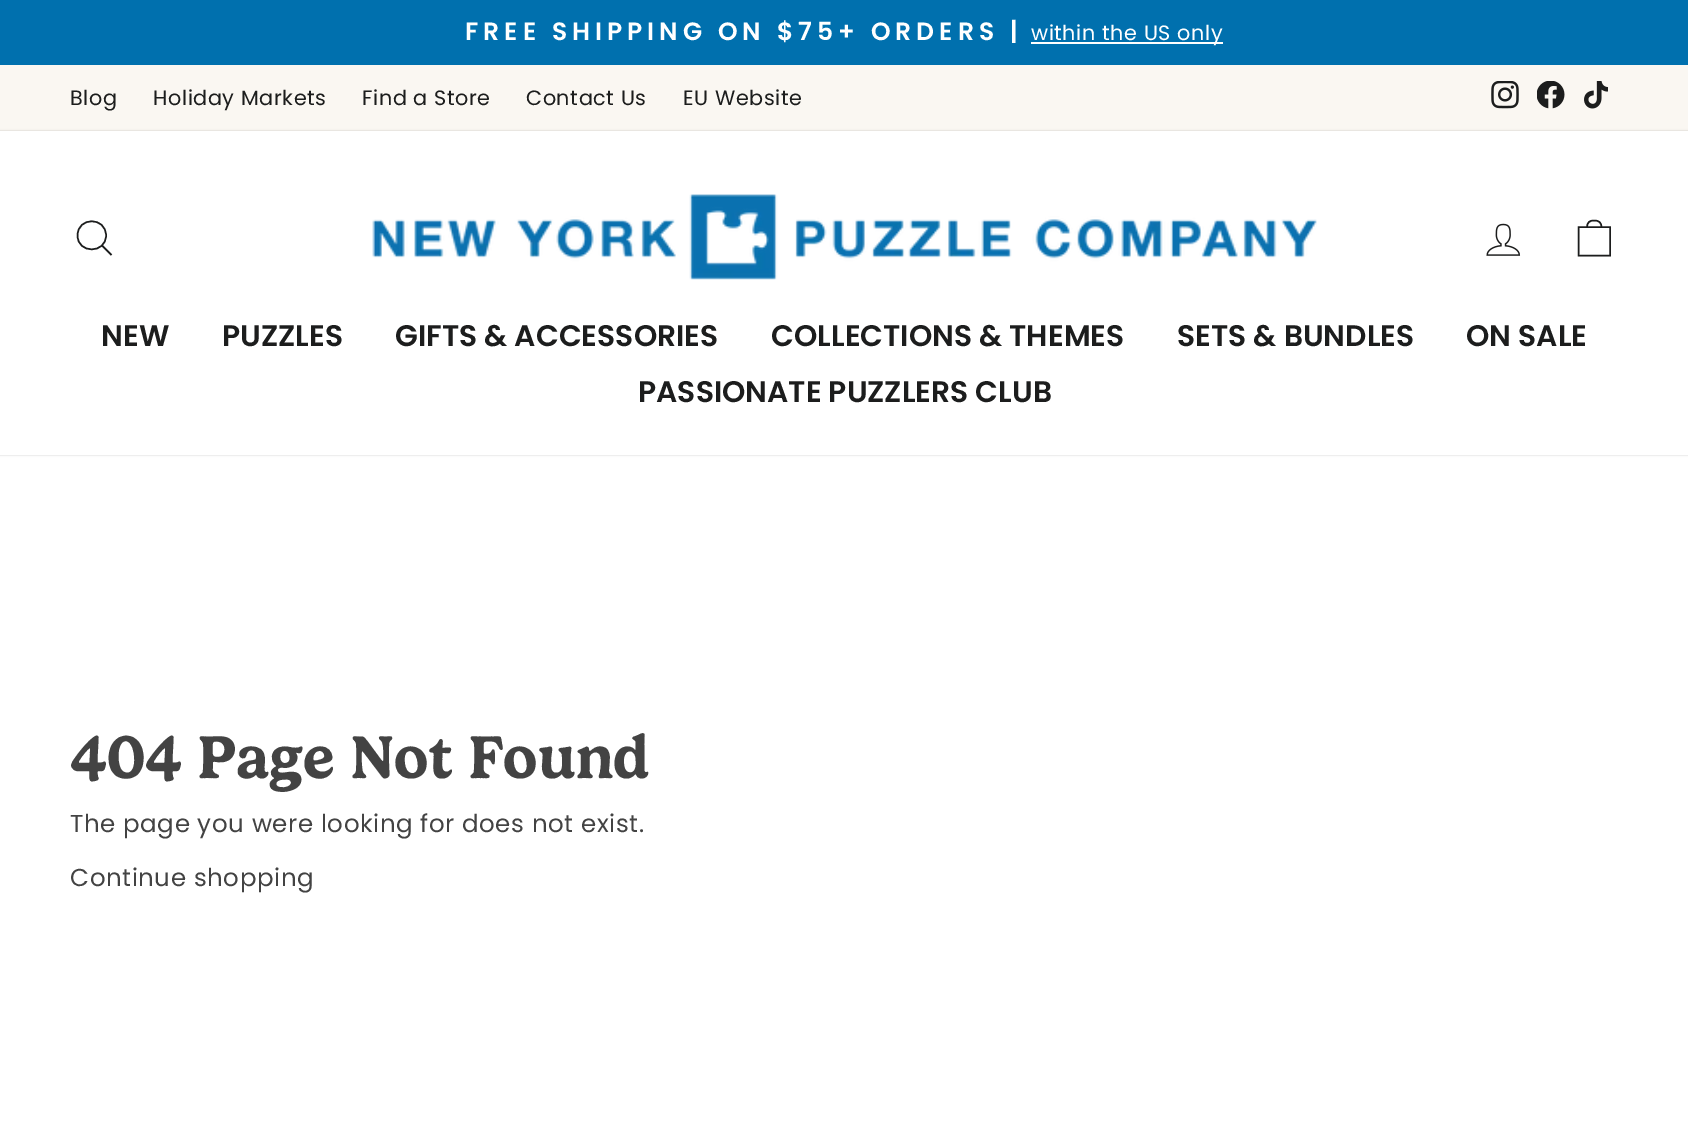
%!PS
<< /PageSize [1688 1129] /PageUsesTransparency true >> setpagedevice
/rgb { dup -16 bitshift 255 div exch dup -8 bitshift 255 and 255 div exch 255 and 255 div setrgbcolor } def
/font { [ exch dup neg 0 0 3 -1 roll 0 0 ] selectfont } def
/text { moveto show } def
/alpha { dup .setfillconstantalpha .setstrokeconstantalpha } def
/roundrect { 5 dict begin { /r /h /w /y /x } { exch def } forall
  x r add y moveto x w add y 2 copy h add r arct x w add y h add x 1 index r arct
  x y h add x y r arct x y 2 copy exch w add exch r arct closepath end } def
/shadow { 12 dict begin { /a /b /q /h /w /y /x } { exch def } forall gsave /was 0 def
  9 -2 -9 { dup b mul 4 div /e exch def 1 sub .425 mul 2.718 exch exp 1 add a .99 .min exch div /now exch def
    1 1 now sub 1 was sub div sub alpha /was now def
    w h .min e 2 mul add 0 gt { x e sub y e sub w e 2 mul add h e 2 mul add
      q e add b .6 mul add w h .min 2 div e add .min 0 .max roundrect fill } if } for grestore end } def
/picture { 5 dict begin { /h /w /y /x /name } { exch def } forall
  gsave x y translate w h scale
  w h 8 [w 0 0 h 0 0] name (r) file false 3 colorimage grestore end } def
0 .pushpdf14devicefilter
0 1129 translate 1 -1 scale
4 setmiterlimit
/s1 { /Poppins-SemiBold 29.75 font 16#1C1D1D rgb } def
/s2 { /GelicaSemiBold-SemiBold 61.25 font 16#434343 rgb } def
16#FFFFFF rgb
0 0 1688 1129 rectfill
16#0070AE rgb
0 0 1688 65 rectfill
/Poppins-SemiBold 25 font
16#FFFFFF rgb
465 40 moveto 5 0 (FREE SHIPPING ON $75+ ORDERS |) ashow
1031 42 192 2 rectfill
/Poppins-Regular 20.75 font
1031 40 moveto 0.6 0 (within the US only) ashow
16#FAF7F2 rgb
0 65 1688 66 rectfill
16#1C1D1D rgb
70 105 moveto 0.6 0 (Blog) ashow
153 105 moveto 0.6 0 (Holiday Markets) ashow
362 105 moveto 0.6 0 (Find a Store) ashow
526 105 moveto 0.6 0 (Contact Us) ashow
683 105 moveto 0.6 0 (EU Website) ashow
(pic1.raw) 1491 81 28 28 picture
(pic2.raw) 1537 81 28 28 picture
(pic3.raw) 1584 81 24 28 picture
16#000000 rgb
0 131 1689 324 0 1 0.2 shadow
16#FFFFFF rgb
0 131 1688 324 rectfill
16#1C1D1D rgb
1.5 setlinewidth
106 235.5 moveto 106 254 77.5 254 77.5 235.5 curveto 77.5 216.5 106 216.5 106 235.5 curveto closepath 111.5 255 moveto 102 245.5 lineto stroke
(pic4.raw) 372 194 945 86 picture
(pic5.raw) 1486 223 35 33 picture
1578.5 227 moveto 1610 227 lineto 1610 255.5 lineto 1578.5 255.5 lineto closepath 1587 227.5 moveto 1587 222 1590 220.5 1594 220.5 curveto 1598.5 220.5 1601.5 222 1601.5 227.5 curveto stroke
s1
(NEW) 101 346 text
(PUZZLES) 222 346 text
(GIFTS & ACCESSORIES) 395 346 text
(COLLECTIONS & THEMES) 771 346 text
(SETS & BUNDLES) 1177 346 text
(ON SALE) 1466 346 text
(PASSIONATE PUZZLERS CLUB) 638 402 text
s2
(404 Page Not Found) 70 778 text
/Poppins-Regular 24.5 font
70 832 moveto 0.6 0 (The page you were looking for does not exist.) ashow
70 886 moveto 0.6 0 (Continue shopping) ashow
.poppdf14devicefilter showpage
